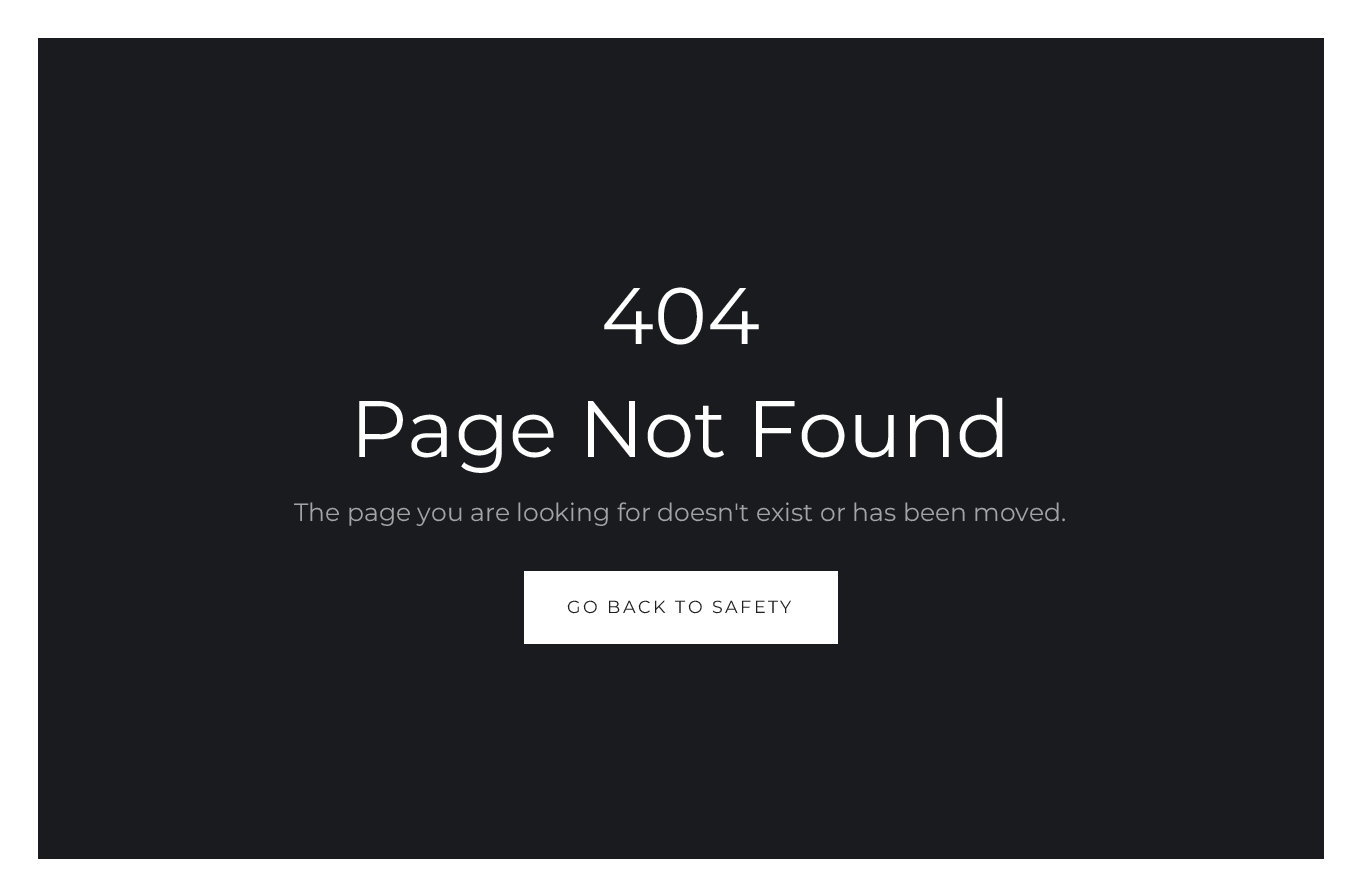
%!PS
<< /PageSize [1361 896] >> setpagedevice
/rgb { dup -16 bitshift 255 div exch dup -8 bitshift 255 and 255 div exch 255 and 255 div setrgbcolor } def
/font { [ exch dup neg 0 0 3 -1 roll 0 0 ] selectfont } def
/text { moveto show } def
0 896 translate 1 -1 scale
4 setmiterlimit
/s1 { /Montserrat-Regular 80 font 16#FFFFFF rgb } def
/s2 { /Montserrat-Regular 25 font 16#A3A4A5 rgb } def
16#FFFFFF rgb
0 0 1361 896 rectfill
16#1A1B1F rgb
38 38 1286 821 rectfill
s1
(404) 601 344 text
(Page Not Found) 350 457 text
s2
(The page you are looking for doesn't exist or has been moved.) 294 521 text
16#FFFFFF rgb
524 571 314 73 rectfill
/Montserrat-Regular 17.5 font
16#202020 rgb
567 613 moveto 2.5 0 (GO BACK TO SAFETY) ashow
showpage
